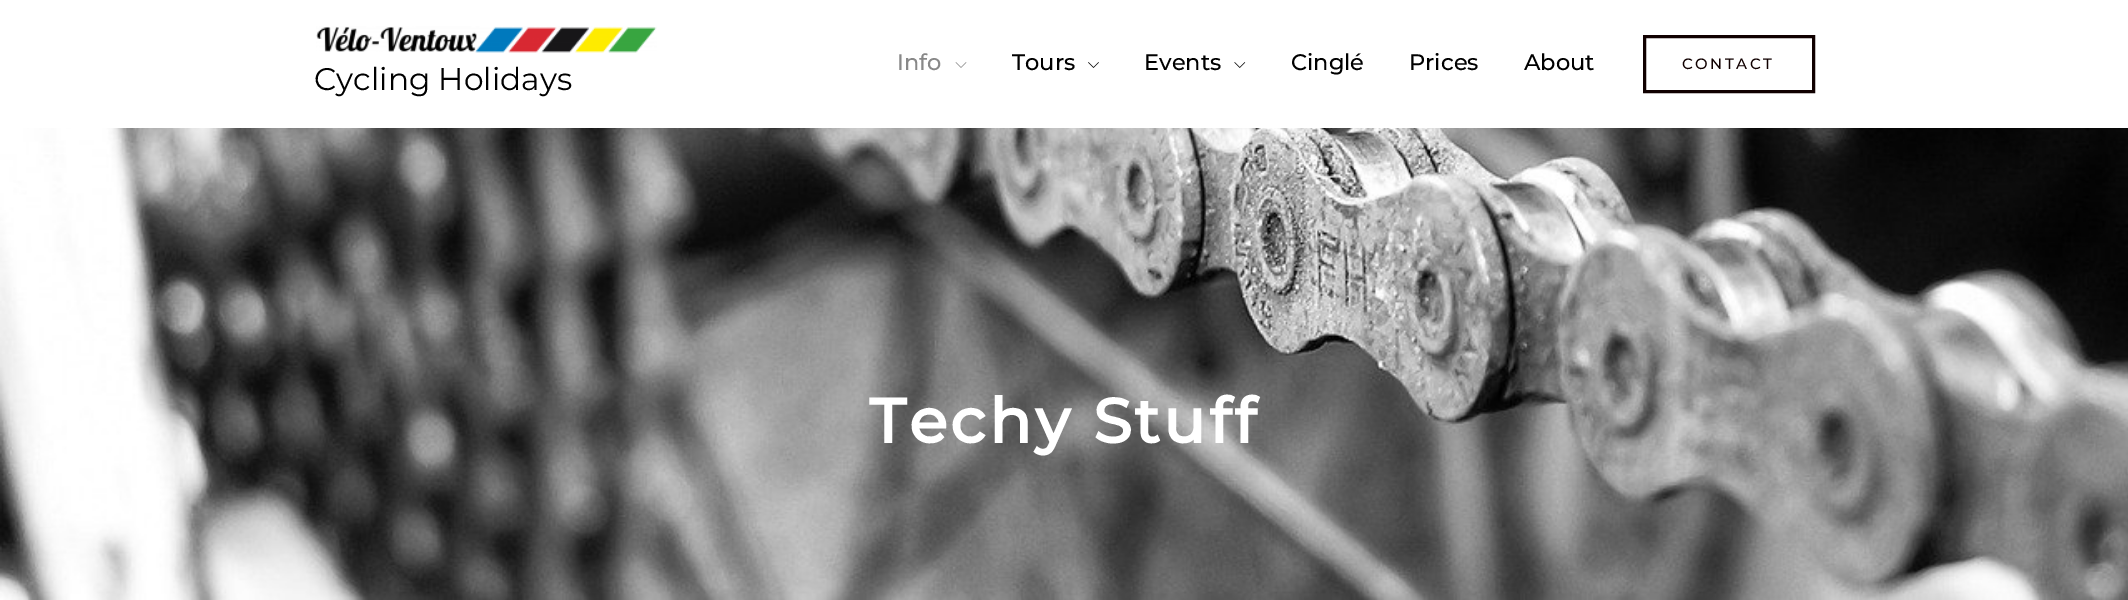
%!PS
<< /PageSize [2128 600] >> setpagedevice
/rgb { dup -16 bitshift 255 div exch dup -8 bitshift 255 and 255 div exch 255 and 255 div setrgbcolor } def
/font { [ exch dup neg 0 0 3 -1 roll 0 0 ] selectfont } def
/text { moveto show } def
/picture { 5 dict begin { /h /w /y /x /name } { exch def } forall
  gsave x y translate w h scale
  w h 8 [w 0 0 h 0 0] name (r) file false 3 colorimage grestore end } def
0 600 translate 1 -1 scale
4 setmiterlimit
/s1 { /Montserrat-Regular 31.25 font 16#000000 rgb } def
/s2 { /Montserrat-Medium 22.5 font 16#888888 rgb } def
/s3 { /Montserrat-Medium 22.5 font 16#000000 rgb } def
16#FFFFFF rgb
0 0 2128 600 rectfill
(pic1.raw) 316 26 341 27 picture
s1
(Cycling Holidays) 314 90 text
s2
(Info) 897 70 text
(pic2.raw) 955 62 12 6 picture
s3
(Tours) 1012 70 text
(pic3.raw) 1088 62 11 6 picture
(Events) 1144 70 text
(pic4.raw) 1234 62 12 6 picture
(Cinglé) 1291 70 text
(Prices) 1409 70 text
(About) 1524 70 text
16#100000 rgb
3 setlinewidth
1644.5 36.5 169 55 rectstroke
/Montserrat-Medium 15 font
1682 69 moveto 2.5 0 (CONTACT) ashow
(pic5.raw) 0 128 2128 472 picture
/Montserrat-Bold 62.5 font
16#FFFFFF rgb
869 443 moveto 3.1 0 (Techy Stuff) ashow
showpage
